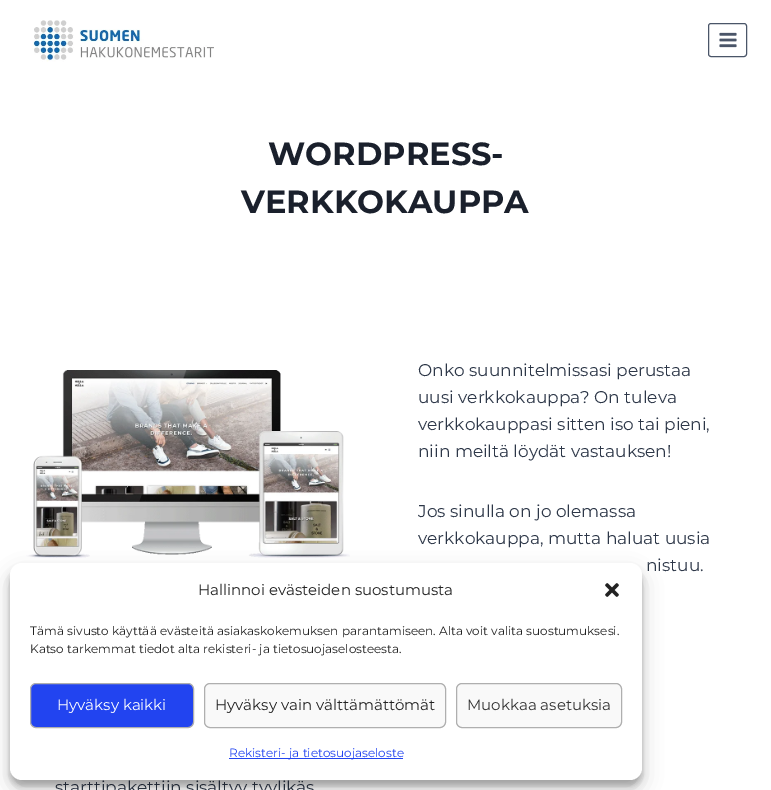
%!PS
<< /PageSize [771 790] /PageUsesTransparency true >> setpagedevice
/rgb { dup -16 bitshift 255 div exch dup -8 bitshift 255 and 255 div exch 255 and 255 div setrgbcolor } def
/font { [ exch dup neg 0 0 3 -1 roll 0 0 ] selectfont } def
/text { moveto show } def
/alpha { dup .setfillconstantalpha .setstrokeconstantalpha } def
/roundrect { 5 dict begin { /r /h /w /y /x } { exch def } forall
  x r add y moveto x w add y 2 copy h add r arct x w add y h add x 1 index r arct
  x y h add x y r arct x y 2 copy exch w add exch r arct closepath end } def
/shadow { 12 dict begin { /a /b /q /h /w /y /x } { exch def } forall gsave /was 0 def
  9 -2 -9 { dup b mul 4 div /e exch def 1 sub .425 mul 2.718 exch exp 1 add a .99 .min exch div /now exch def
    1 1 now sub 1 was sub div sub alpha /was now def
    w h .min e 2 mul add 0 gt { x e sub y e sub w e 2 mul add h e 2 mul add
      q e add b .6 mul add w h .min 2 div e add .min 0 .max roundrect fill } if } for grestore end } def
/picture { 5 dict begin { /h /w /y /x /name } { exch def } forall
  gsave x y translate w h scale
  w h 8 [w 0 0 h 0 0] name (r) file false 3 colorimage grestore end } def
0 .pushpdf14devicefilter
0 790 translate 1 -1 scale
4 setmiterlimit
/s1 { /Montserrat-Bold 32 font 16#1A202C rgb } def
/s2 { /Montserrat-Regular 17 font 16#2D3748 rgb } def
/s3 { /Montserrat-Regular 15 font 16#222222 rgb } def
/s4 { /Montserrat-Regular 12 font 16#222222 rgb } def
/s5 { /Montserrat-Regular 15 font 16#FFFFFF rgb } def
/s6 { /Montserrat-Regular 15 font 16#333333 rgb } def
/s7 { /Montserrat-Regular 12 font 16#2244F0 rgb } def
16#FFFFFF rgb
0 0 771 790 rectfill
(pic1.raw) 32 20 182 42 picture
16#4A5568 rgb
708.5 23.5 38 33 2.5 roundrect stroke
(pic2.raw) 719 32 18 16 picture
s1
(WORDPRESS-) 268 165 text
(VERKKOKAUPPA) 241 213 text
(pic3.raw) 26 370 324 188 picture
s2
(Onko suunnitelmissasi perustaa) 418 376 text
(uusi verkkokauppa? On tuleva) 418 403 text
(verkkokauppasi sitten iso tai pieni,) 418 430 text
(niin meiltä löydät vastauksen!) 418 457 text
(Jos sinulla on jo olemassa) 418 517 text
(verkkokauppa, mutta haluat uusia) 418 544 text
(nistuu.) 646 571 text
(starttipakettiin sisältyy tyylikäs) 55 793 text
16#000000 rgb
10 569 632 217 12 3 0.23 shadow
10 573 632 217 12 10 0.19 shadow
16#FFFFFF rgb
10 563 632 217 12 roundrect fill
s3
(Hallinnoi evästeiden suostumusta) 198 595 text
(pic4.raw) 605 583 14 14 picture
s4
(Tämä sivusto käyttää evästeitä asiakaskokemuksen parantamiseen. Alta voit valita suostumuksesi.) 30 635 text
(Katso tarkemmat tiedot alta rekisteri- ja tietosuojaselosteesta.) 30 653 text
16#2244F0 rgb
30.5 683.5 163 44 5.5 roundrect gsave fill grestore
16#AFAFAF rgb
stroke
s5
(Hyväksy kaikki) 57 710 text
16#F9F9F9 rgb
204.5 683.5 241 44 5.5 roundrect gsave fill grestore
16#AFAFAF rgb
stroke
s3
(Hyväksy vain välttämättömät) 215 710 text
16#F9F9F9 rgb
456.5 683.5 165 44 5.5 roundrect gsave fill grestore
16#AFAFAF rgb
stroke
s6
(Muokkaa asetuksia) 467 710 text
16#2244F0 rgb
229 758 174 1 rectfill
s7
(Rekisteri- ja tietosuojaseloste) 229 757 text
.poppdf14devicefilter showpage
